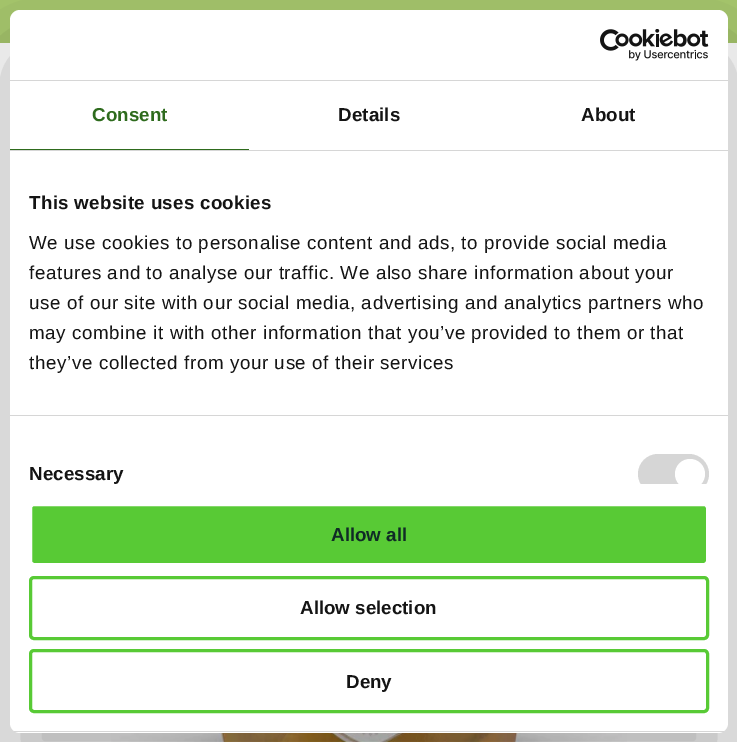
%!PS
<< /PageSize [737 742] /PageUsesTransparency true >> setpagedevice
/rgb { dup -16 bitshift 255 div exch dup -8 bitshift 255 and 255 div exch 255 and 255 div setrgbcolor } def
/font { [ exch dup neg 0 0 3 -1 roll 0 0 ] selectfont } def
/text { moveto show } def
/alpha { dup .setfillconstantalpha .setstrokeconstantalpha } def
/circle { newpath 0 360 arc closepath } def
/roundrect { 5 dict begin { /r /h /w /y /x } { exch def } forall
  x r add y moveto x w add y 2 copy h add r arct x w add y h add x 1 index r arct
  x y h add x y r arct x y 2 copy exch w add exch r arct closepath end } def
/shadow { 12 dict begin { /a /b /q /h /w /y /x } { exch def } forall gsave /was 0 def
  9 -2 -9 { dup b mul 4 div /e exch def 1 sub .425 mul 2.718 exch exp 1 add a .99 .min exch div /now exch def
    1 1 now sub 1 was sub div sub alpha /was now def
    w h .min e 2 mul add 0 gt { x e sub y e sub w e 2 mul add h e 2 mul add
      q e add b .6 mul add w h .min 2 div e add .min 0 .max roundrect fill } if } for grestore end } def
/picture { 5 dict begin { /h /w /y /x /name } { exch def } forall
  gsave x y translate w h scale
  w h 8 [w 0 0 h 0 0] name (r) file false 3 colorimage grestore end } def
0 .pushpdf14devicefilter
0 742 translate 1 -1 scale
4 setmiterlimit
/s1 { /LiberationSans-Bold 18.75 font 16#102B26 rgb } def
/s2 { /LiberationSans-Bold 18.75 font 16#141414 rgb } def
16#FFFFFF rgb
0 0 737 742 rectfill
16#A6C76C rgb
0 0 737 43 rectfill
(pic1.raw) 111 733 516 9 picture
16#000000 rgb
10 50 718 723 10 42.5 0.3 shadow
16#FFFFFF rgb
10 10 718 723 10 roundrect fill
16#D6D6D6 rgb
10 80 718 1 rectfill
(pic2.raw) 600 29 109 32 picture
10 150 718 1 rectfill
16#2E6B1D rgb
10 149 239 1 rectfill
/LiberationSans-Bold 18.75 font
92 121 moveto 0.1 0 (Consent) ashow
16#141414 rgb
338 121 moveto 0.1 0 (Details) ashow
581 121 moveto 0.1 0 (About) ashow
16#D6D6D6 rgb
10 415 718 1 rectfill
16#141414 rgb
29 209 moveto 0.3 0 (This website uses cookies) ashow
/LiberationSans-Regular 18.75 font
29 249 moveto 0.62 0 (We use cookies to personalise content and ads, to provide social media) ashow
29 279 moveto 0.62 0 (features and to analyse our traffic. We also share information about your) ashow
29 309 moveto 0.62 0 (use of our site with our social media, advertising and analytics partners who) ashow
29 339 moveto 0.62 0 (may combine it with other information that you’ve provided to them or that) ashow
29 369 moveto 0.62 0 (they’ve collected from your use of their services) ashow
/LiberationSans-Bold 18.75 font
29 480 moveto 0.1 0 (Necessary) ashow
gsave
10 151 718 333 rectclip
16#D6D6D6 rgb
638 454 71 40 20 roundrect fill
16#FFFFFF rgb
690 474 15 circle fill
grestore
gsave
10 10 718 723 10 roundrect clip newpath
16#D6D6D6 rgb
10 731 718 1 rectfill
grestore
16#58CA35 rgb
30.5 504.5 677 60 3.5 roundrect gsave fill grestore
16#FFFFFF rgb
3 setlinewidth
stroke
s1
(Allow all) 331 541 text
16#58CA35 rgb
30.5 577.5 677 61 3.5 roundrect stroke
s2
(Allow selection) 300 614 text
16#58CA35 rgb
30.5 650.5 677 61 3.5 roundrect stroke
s2
(Deny) 346 688 text
.poppdf14devicefilter showpage
